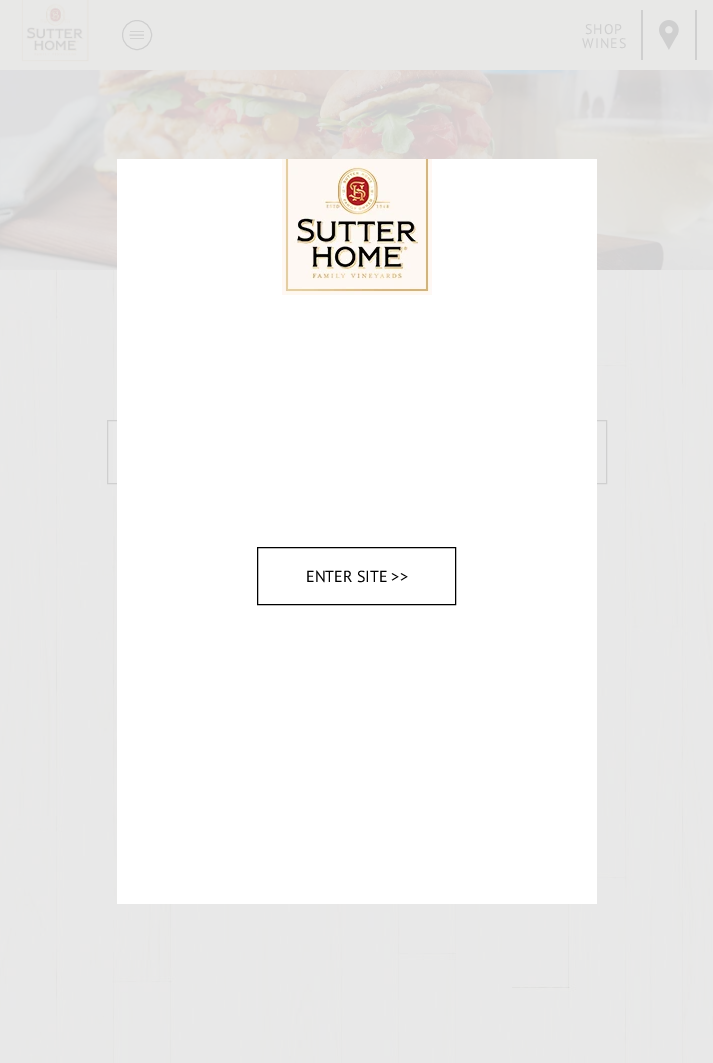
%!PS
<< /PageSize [713 1063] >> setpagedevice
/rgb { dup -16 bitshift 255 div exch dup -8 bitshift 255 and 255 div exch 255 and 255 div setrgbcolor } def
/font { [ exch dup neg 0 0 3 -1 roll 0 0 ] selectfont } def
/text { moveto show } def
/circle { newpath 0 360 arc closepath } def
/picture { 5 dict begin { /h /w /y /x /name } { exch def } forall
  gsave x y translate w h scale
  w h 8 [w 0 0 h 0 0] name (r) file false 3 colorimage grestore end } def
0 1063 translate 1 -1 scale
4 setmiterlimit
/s1 { /PTSans-Regular 16 font 16#000000 rgb } def
16#FFFFFF rgb
0 0 713 1063 rectfill
16#E8E8E7 rgb
0 0 713 70 rectfill
(pic1.raw) 21 0 68 63 picture
16#CFCFCF rgb
0.9 setlinewidth
137 35 14.5 circle stroke
16#D2D2D1 rgb
130 31 14 1 rectfill
16#CFCFCF rgb
129.5 35 moveto 144 35 lineto stroke
16#D2D2D1 rgb
130 38 14 1 rectfill
16#CFCFCF rgb
641 10 2 50 rectfill
/PTSans-Regular 14 font
585 34 moveto 1 0 (SHOP) ashow
582 48 moveto 1 0 (WINES) ashow
695 10 2 50 rectfill
(pic2.raw) 659 20 20 30 picture
(pic3.raw) 0 270 713 793 picture
(pic4.raw) 0 70 713 200 picture
16#E9E9E9 rgb
113 421 461 62 rectfill
16#CFCFCF rgb
1 setlinewidth
107.5 420.5 499 63 rectstroke
16#FFFFFF rgb
117 159 480 745 rectfill
(pic5.raw) 282 159 150 136 picture
16#000000 rgb
257.5 547.5 198 57 rectstroke
s1
(ENTER SITE >>) 306 582 text
showpage
